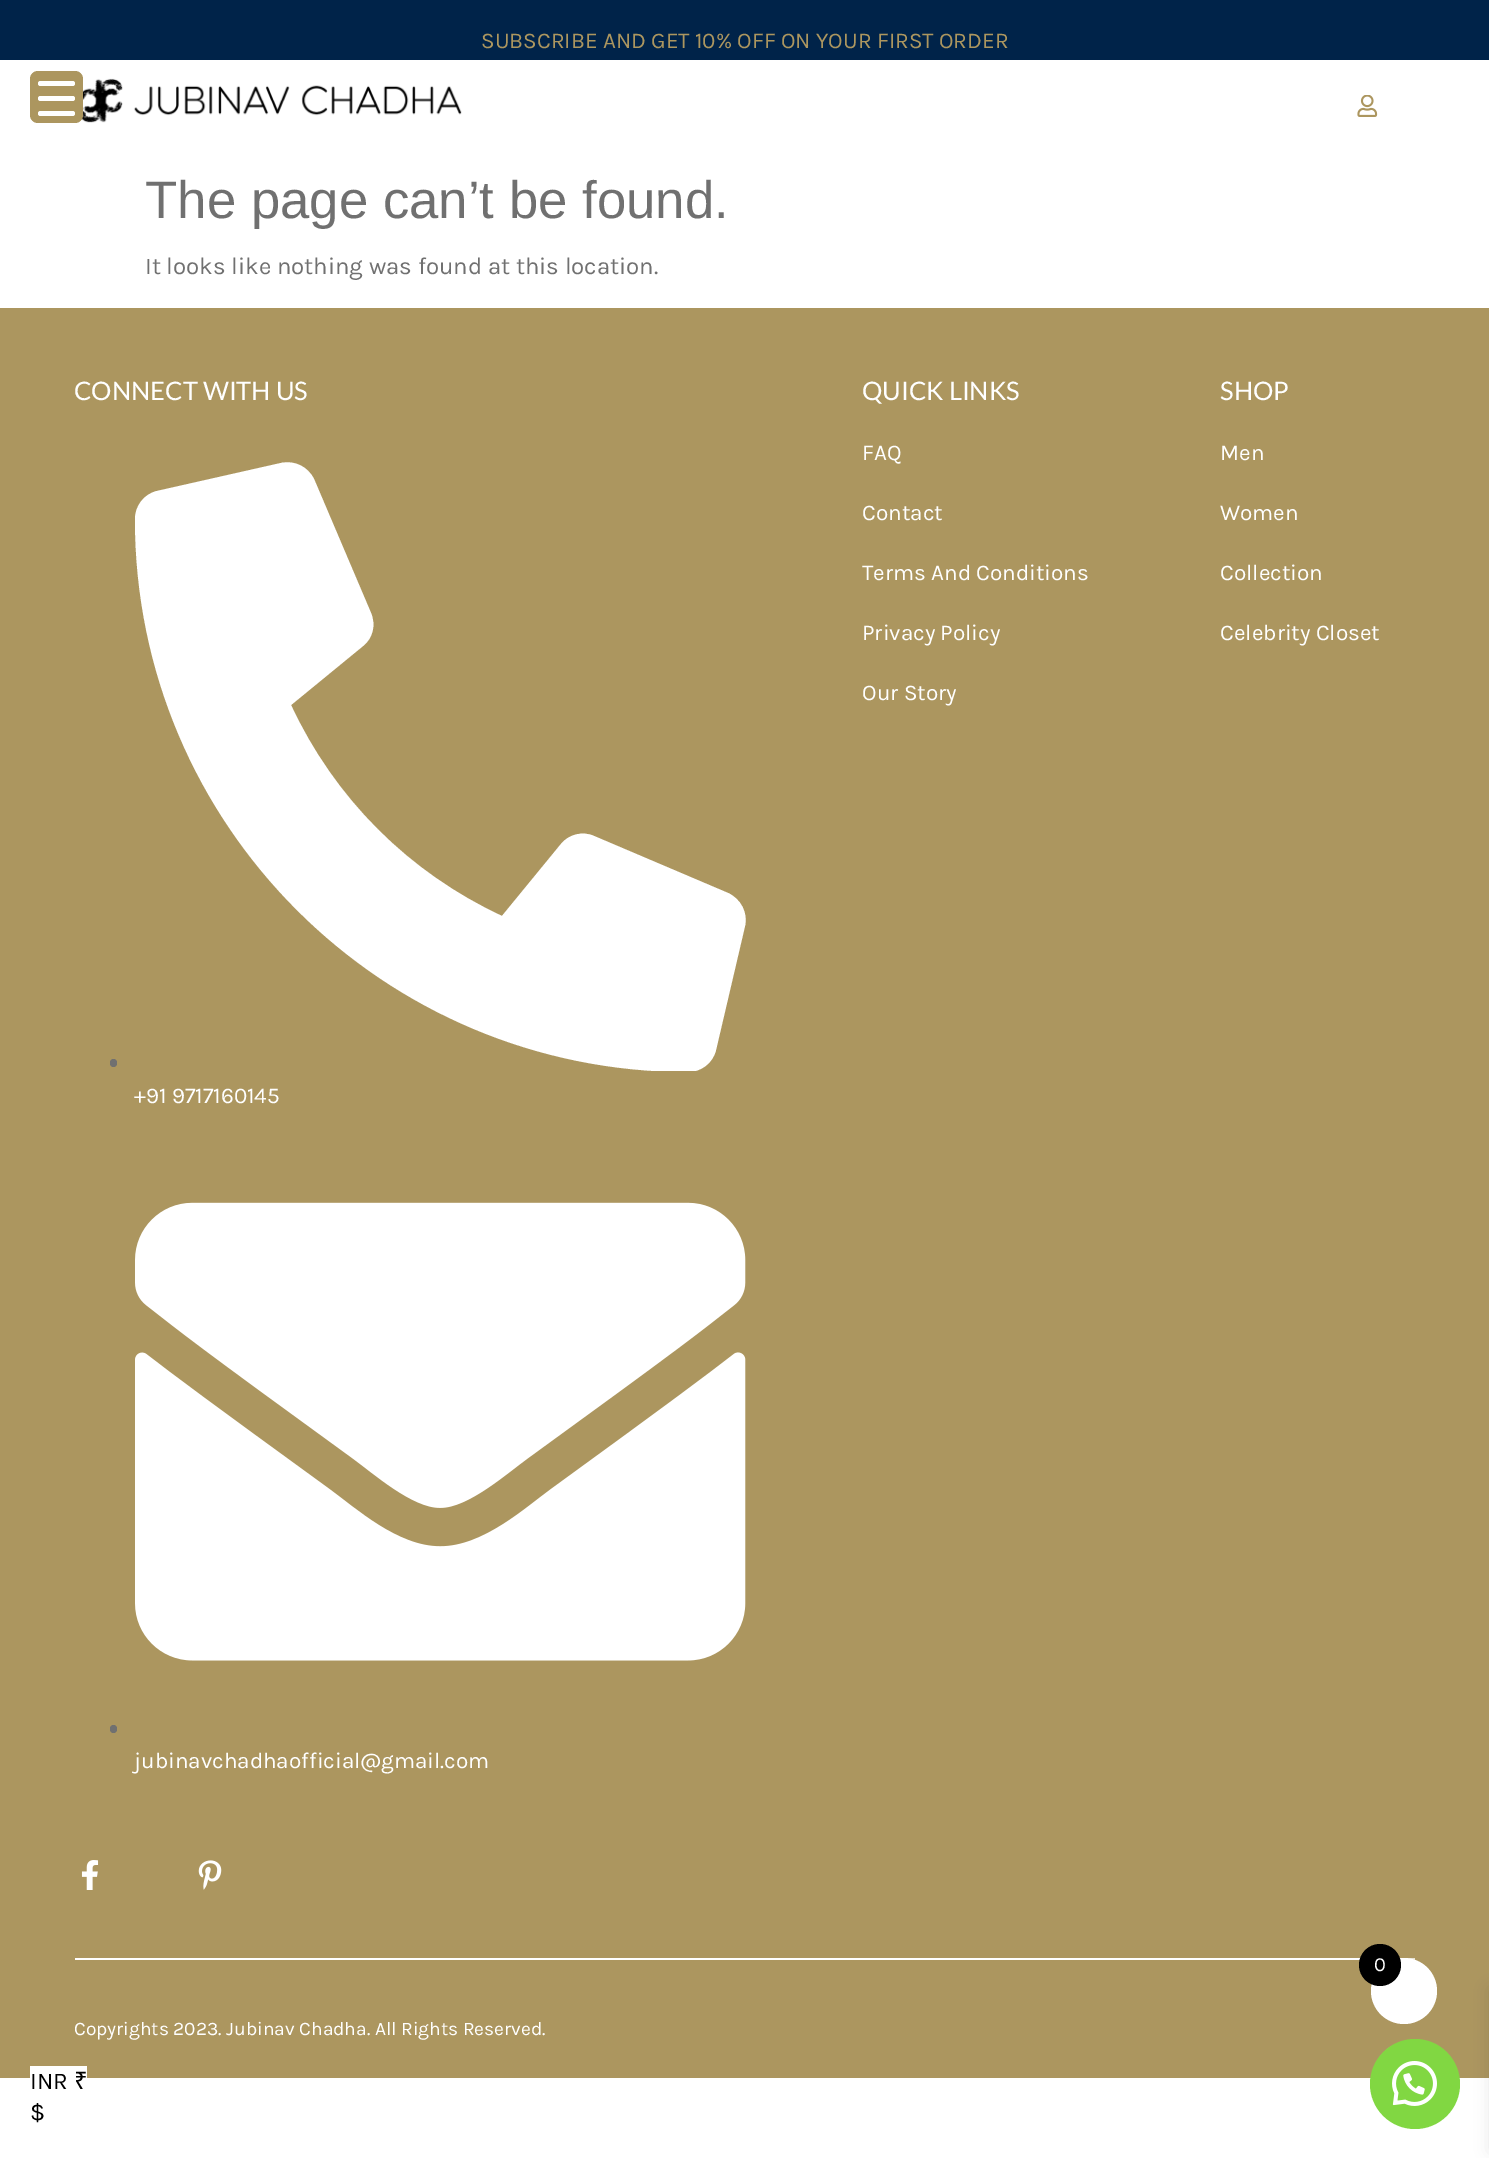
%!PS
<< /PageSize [1489 2158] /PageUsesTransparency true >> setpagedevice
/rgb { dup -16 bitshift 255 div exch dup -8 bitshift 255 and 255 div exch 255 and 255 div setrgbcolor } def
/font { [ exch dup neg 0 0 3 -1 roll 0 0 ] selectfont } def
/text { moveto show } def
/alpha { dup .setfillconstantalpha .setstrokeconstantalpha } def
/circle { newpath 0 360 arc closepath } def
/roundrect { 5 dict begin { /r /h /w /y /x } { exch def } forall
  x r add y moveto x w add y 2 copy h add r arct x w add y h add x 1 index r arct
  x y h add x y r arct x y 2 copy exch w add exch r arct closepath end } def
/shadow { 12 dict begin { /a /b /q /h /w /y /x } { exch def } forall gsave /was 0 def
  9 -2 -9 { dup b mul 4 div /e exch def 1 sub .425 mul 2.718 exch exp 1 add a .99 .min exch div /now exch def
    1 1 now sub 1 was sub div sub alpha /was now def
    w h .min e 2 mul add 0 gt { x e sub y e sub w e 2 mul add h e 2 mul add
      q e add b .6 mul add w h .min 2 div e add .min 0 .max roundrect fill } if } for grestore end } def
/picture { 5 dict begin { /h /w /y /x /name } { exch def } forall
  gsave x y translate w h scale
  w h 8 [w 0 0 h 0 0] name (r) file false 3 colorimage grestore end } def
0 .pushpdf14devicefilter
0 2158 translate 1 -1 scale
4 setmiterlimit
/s1 { /Karla-Regular 22.5 font 16#AC965F rgb } def
/s2 { /Karla-Regular 24 font 16#000000 rgb } def
/s3 { /NotoSans-Regular 24 font 16#000000 rgb } def
/s4 { /LiberationSans-Regular 52.75 font 16#707070 rgb } def
/s5 { /Karla-Regular 24 font 16#707070 rgb } def
/s6 { /Lato-Regular 25.5 font 16#FFFFFF rgb } def
/s7 { /Karla-Regular 22.5 font 16#FFFFFF rgb } def
/s8 { /Karla-Regular 19.2 font 16#FFFFFF rgb } def
/s9 { /Karla-Regular 20 font 16#FFFFFF rgb } def
16#FFFFFF rgb
0 0 1489 2158 rectfill
16#002349 rgb
0 0 1489 60 rectfill
s1
(SUBSCRIBE AND GET 10% OFF ON YOUR FIRST ORDER) 481 48 text
0 308 1489 1770 rectfill
16#FFFFFF rgb
30 2066 57 12 rectfill
s2
(INR) 30 2089 text
s3
(₹) 74 2089 text
s2
($) 30 2120 text
(pic1.raw) 81 78 381 45 picture
(pic2.raw) 1357 95 21 22 picture
16#AC965F rgb
30 71 53 52 8 roundrect fill
16#FFFFFF rgb
38 96 37 5 2.5 roundrect fill
38 81 37 5 2.5 roundrect fill
38 111 37 5 2.5 roundrect fill
s4
(The page can’t be found.) 145 218 text
s5
(It looks like nothing was found at this location.) 145 274 text
s6
(CONNECT WITH US) 74 400 text
16#707070 rgb
110 1059 7 8 3.5 roundrect fill
s7
(+91 9717160145) 134 1103 text
gsave
135 462 611 609 rectclip
728 893 moveto 594 836 lineto 583 831 569 834 561 844 curveto 502 916 lineto 409 873 334 798 291 705 curveto 363 646 lineto 373 638 376 625 371 613 curveto 314 479 lineto 308 467 295 460 281 463 curveto 157 491 lineto 144 494 135 506 135 519 curveto 135 825 383 1072 688 1072 curveto 701 1072 713 1063 716 1050 curveto 745 926 lineto 748 913 741 899 728 893 curveto closepath fill
grestore
(pic3.raw) 135 1202 611 459 picture
16#707070 rgb
110 1725 7 8 3.5 roundrect fill
s7
(jubinavchadhaofficial@gmail.com) 134 1768 text
(pic4.raw) 81 1860 18 30 picture
(pic5.raw) 198 1860 24 30 picture
s6
(QUICK LINKS) 862 400 text
s7
(FAQ) 862 460 text
(Contact) 862 520 text
(Terms And Conditions) 862 580 text
(Privacy Policy) 862 640 text
(Our Story) 862 700 text
s6
(SHOP) 1220 400 text
s7
(Men) 1220 460 text
(Women) 1220 520 text
(Collection) 1220 580 text
(Celebrity Closet) 1220 640 text
75 1958 1340 2 rectfill
s8
(Copyrights 2023. Jubinav Chadha. All Rights Reserved.) 74 2035 text
(pic6.raw) 1378 2044 17 15 picture
16#AC965F rgb
1371 1959 66 66 33 3 1 shadow
16#FFFFFF rgb
1404 1991 33 circle fill
16#000000 rgb
1380 1965 21 circle fill
s9
(0) 1374 1971 text
16#000000 rgb
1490 1989 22 162 0 7.5 0.1 shadow
16#81D742 rgb
1415 2084 45 circle fill
(pic7.raw) 1392 2061 45 45 picture
.poppdf14devicefilter showpage
